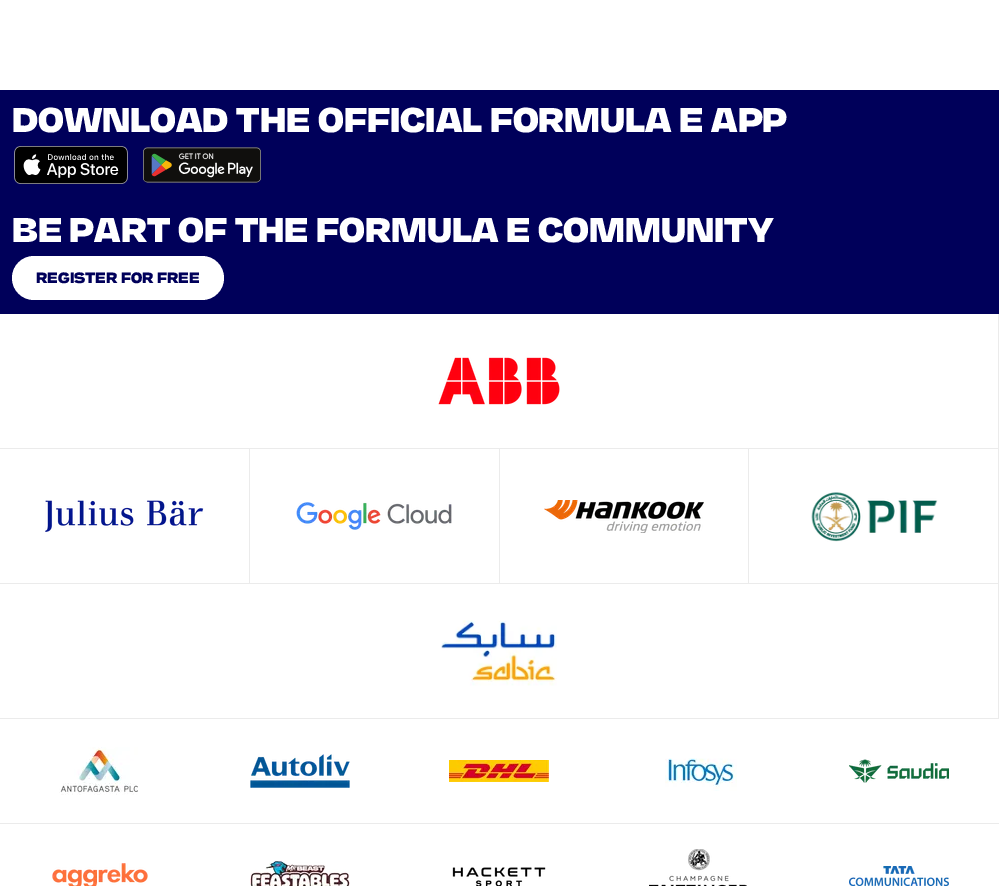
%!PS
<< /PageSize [999 886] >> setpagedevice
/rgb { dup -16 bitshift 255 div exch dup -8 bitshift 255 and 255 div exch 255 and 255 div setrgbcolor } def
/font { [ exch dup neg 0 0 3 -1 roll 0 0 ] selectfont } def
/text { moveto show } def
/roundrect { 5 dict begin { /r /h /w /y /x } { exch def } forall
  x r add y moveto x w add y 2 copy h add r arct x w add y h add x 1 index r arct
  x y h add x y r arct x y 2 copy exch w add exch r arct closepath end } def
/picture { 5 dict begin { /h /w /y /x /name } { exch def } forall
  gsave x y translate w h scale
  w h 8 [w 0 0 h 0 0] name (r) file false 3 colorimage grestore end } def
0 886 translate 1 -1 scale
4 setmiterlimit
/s1 { /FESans-Bold 32 font 16#FFFFFF rgb } def
/s2 { /FESans-Bold 14 font 16#00005A rgb } def
16#FFFFFF rgb
0 0 999 886 rectfill
16#00005A rgb
0 90 999 224 rectfill
s1
(DOWNLOAD THE OFFICIAL FORMULA E APP) 12 132 text
(pic1.raw) 14 146 114 38 picture
(pic2.raw) 143 147 118 36 picture
(BE PART OF THE FORMULA E COMMUNITY) 12 242 text
12 256 212 44 22 roundrect fill
gsave
13 253 209 50 25 roundrect clip newpath
13 268 2 20 rectfill
grestore
s2
(REGISTER FOR FREE) 36 283 text
16#EBEBEB rgb
998 314 1 405 rectfill
0 448 999 1 rectfill
(pic3.raw) 438 357 122 48 picture
249 449 1 135 rectfill
0 583 250 1 rectfill
(pic4.raw) 45 500 159 32 picture
499 449 1 135 rectfill
250 583 250 1 rectfill
(pic5.raw) 296 502 156 28 picture
748 449 1 135 rectfill
500 583 499 1 rectfill
(pic6.raw) 544 500 160 33 picture
(pic7.raw) 811 492 127 50 picture
0 718 999 1 rectfill
(pic8.raw) 441 620 116 66 picture
0 823 999 1 rectfill
(pic9.raw) 59 747 79 48 picture
(pic10.raw) 250 754 100 34 picture
(pic11.raw) 449 760 100 22 picture
(pic12.raw) 665 758 72 33 picture
(pic13.raw) 849 759 100 24 picture
(pic14.raw) 52 863 96 23 picture
(pic15.raw) 250 860 100 26 picture
(pic16.raw) 452 867 94 19 picture
(pic17.raw) 649 849 98 37 picture
(pic18.raw) 849 866 100 20 picture
showpage
